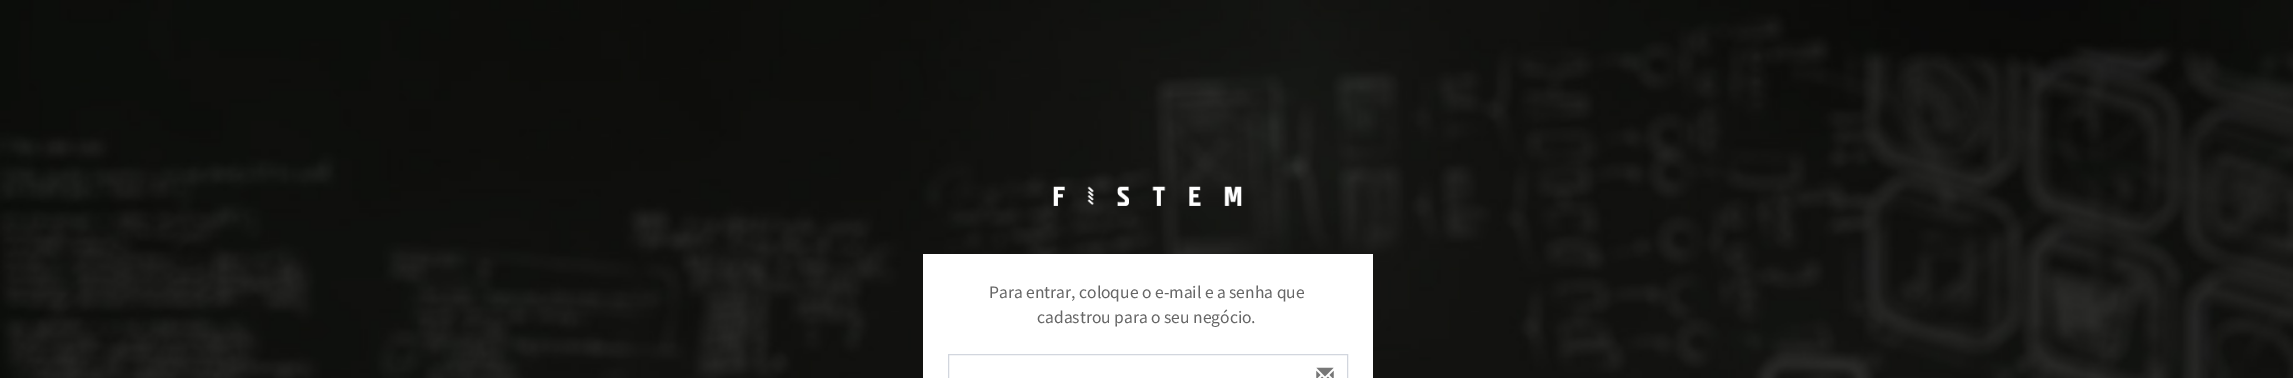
%!PS
<< /PageSize [2293 378] >> setpagedevice
/rgb { dup -16 bitshift 255 div exch dup -8 bitshift 255 and 255 div exch 255 and 255 div setrgbcolor } def
/font { [ exch dup neg 0 0 3 -1 roll 0 0 ] selectfont } def
/text { moveto show } def
/picture { 5 dict begin { /h /w /y /x /name } { exch def } forall
  gsave x y translate w h scale
  w h 8 [w 0 0 h 0 0] name (r) file false 3 colorimage grestore end } def
0 378 translate 1 -1 scale
4 setmiterlimit
/s1 { /SourceSansPro-Regular 17.5 font 16#666666 rgb } def
16#FFFFFF rgb
0 0 2293 378 rectfill
(pic1.raw) 0 0 2293 378 picture
(pic2.raw) 1053 186 189 20 picture
923 254 450 124 rectfill
s1
(Para entrar, coloque o e-mail e a senha que) 989 298 text
(cadastrou para o seu negócio.) 1037 323 text
16#D2D6DE rgb
948.5 354.5 399 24 rectstroke
(pic3.raw) 1316 367 18 11 picture
showpage
